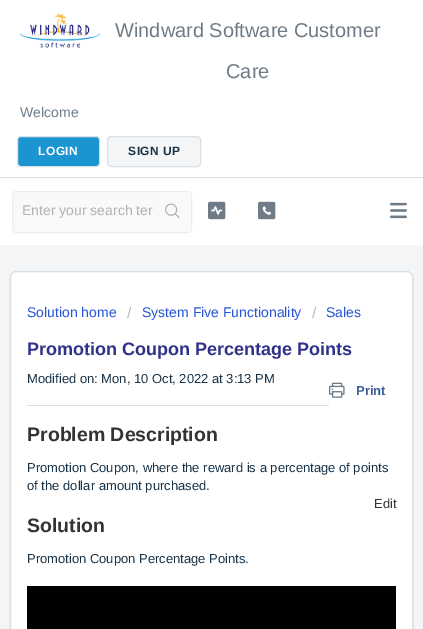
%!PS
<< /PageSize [423 629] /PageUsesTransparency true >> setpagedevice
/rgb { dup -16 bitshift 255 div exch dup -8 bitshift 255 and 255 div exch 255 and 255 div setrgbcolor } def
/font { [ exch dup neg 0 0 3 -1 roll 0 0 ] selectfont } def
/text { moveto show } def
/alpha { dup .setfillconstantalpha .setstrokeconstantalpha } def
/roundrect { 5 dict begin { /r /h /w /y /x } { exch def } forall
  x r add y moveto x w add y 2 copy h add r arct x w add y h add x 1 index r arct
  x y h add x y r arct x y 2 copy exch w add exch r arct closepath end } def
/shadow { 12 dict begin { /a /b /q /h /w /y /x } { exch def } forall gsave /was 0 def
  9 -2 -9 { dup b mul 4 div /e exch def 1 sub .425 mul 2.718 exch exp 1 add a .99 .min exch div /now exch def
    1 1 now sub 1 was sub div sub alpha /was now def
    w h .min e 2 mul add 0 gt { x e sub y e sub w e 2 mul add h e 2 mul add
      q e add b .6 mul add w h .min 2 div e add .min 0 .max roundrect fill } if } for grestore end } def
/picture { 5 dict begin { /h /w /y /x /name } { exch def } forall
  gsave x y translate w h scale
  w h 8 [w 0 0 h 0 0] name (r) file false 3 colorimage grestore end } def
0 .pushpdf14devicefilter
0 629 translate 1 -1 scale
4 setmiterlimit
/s1 { /LiberationSans-Regular 20 font 16#6F7C87 rgb } def
/s2 { /LiberationSans-Regular 14 font 16#6F7C87 rgb } def
/s3 { /LiberationSans-Regular 14 font 16#B2B2B2 rgb } def
/s4 { /LiberationSans-Regular 14 font 16#2753D7 rgb } def
/s5 { /LiberationSans-Regular 16 font 16#BBBBBB rgb } def
/s6 { /LiberationSans-Bold 18 font 16#303188 rgb } def
/s7 { /LiberationSans-Bold 13 font 16#3B5998 rgb } def
/s8 { /LiberationSans-Regular 13 font 16#183247 rgb } def
/s9 { /LiberationSans-Bold 19.5 font 16#333333 rgb } def
/s10 { /LiberationSans-Regular 13 font 16#333333 rgb } def
16#F3F5F7 rgb
0 0 423 629 rectfill
16#FFFFFF rgb
0 0 423 177 rectfill
16#DADFE3 rgb
0 177 423 1 rectfill
(pic1.raw) 20 13 80 35 picture
s1
(Windward Software Customer) 115 37 text
(Care) 226 78 text
s2
(Welcome) 20 117 text
16#1B94D2 rgb
17.5 136.5 82 30 3.5 roundrect gsave fill grestore
16#DADFE3 rgb
stroke
/LiberationSans-Bold 12 font
16#FFFFFF rgb
38 155 moveto 0.5 0 (LOGIN) ashow
16#F3F5F7 rgb
107.5 136.5 93 30 3.5 roundrect gsave fill grestore
16#DADFE3 rgb
stroke
16#183247 rgb
128 155 moveto 0.5 0 (SIGN UP) ashow
16#FFFFFF rgb
0 178 423 67 rectfill
(pic2.raw) 390 202 17 17 picture
16#F8F9FA rgb
12.5 191.5 179 41 3.5 roundrect gsave fill grestore
16#EBEEF0 rgb
stroke
s3
(Enter your search ter) 22 215 text
16#F8F9FA rgb
155 192 36 40 2 roundrect fill
(pic3.raw) 165 203 15 15 picture
(pic4.raw) 208 201 18 19 picture
(pic5.raw) 258 201 18 19 picture
10 271 403 6 rectfill
16#3F3F44 rgb
10 272 403 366 6 1 0.15 shadow
16#FFFFFF rgb
10.5 271.5 402 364 5.5 roundrect gsave fill grestore
16#DADFE3 rgb
stroke
s4
(Solution home) 27 317 text
s5
(/) 127 318 text
s4
(System Five Functionality) 142 317 text
s5
(/) 312 318 text
s4
(Sales) 326 317 text
s6
(Promotion Coupon Percentage Points) 27 355 text
(pic6.raw) 329 382 16 16 picture
s7
(Print) 356 395 text
s8
(Modified on: Mon, 10 Oct, 2022 at 3:13 PM) 27 383 text
16#DCDCDC rgb
27 405 302 1 rectfill
s9
(Problem Description) 27 441 text
s8
(Promotion Coupon, where the reward is a percentage of points) 27 472 text
(of the dollar amount purchased.) 27 490 text
s10
(Edit) 374 508 text
s9
(Solution) 27 532 text
s8
(Promotion Coupon Percentage Points.) 27 563 text
16#000000 rgb
27 586 369 43 rectfill
.poppdf14devicefilter showpage
